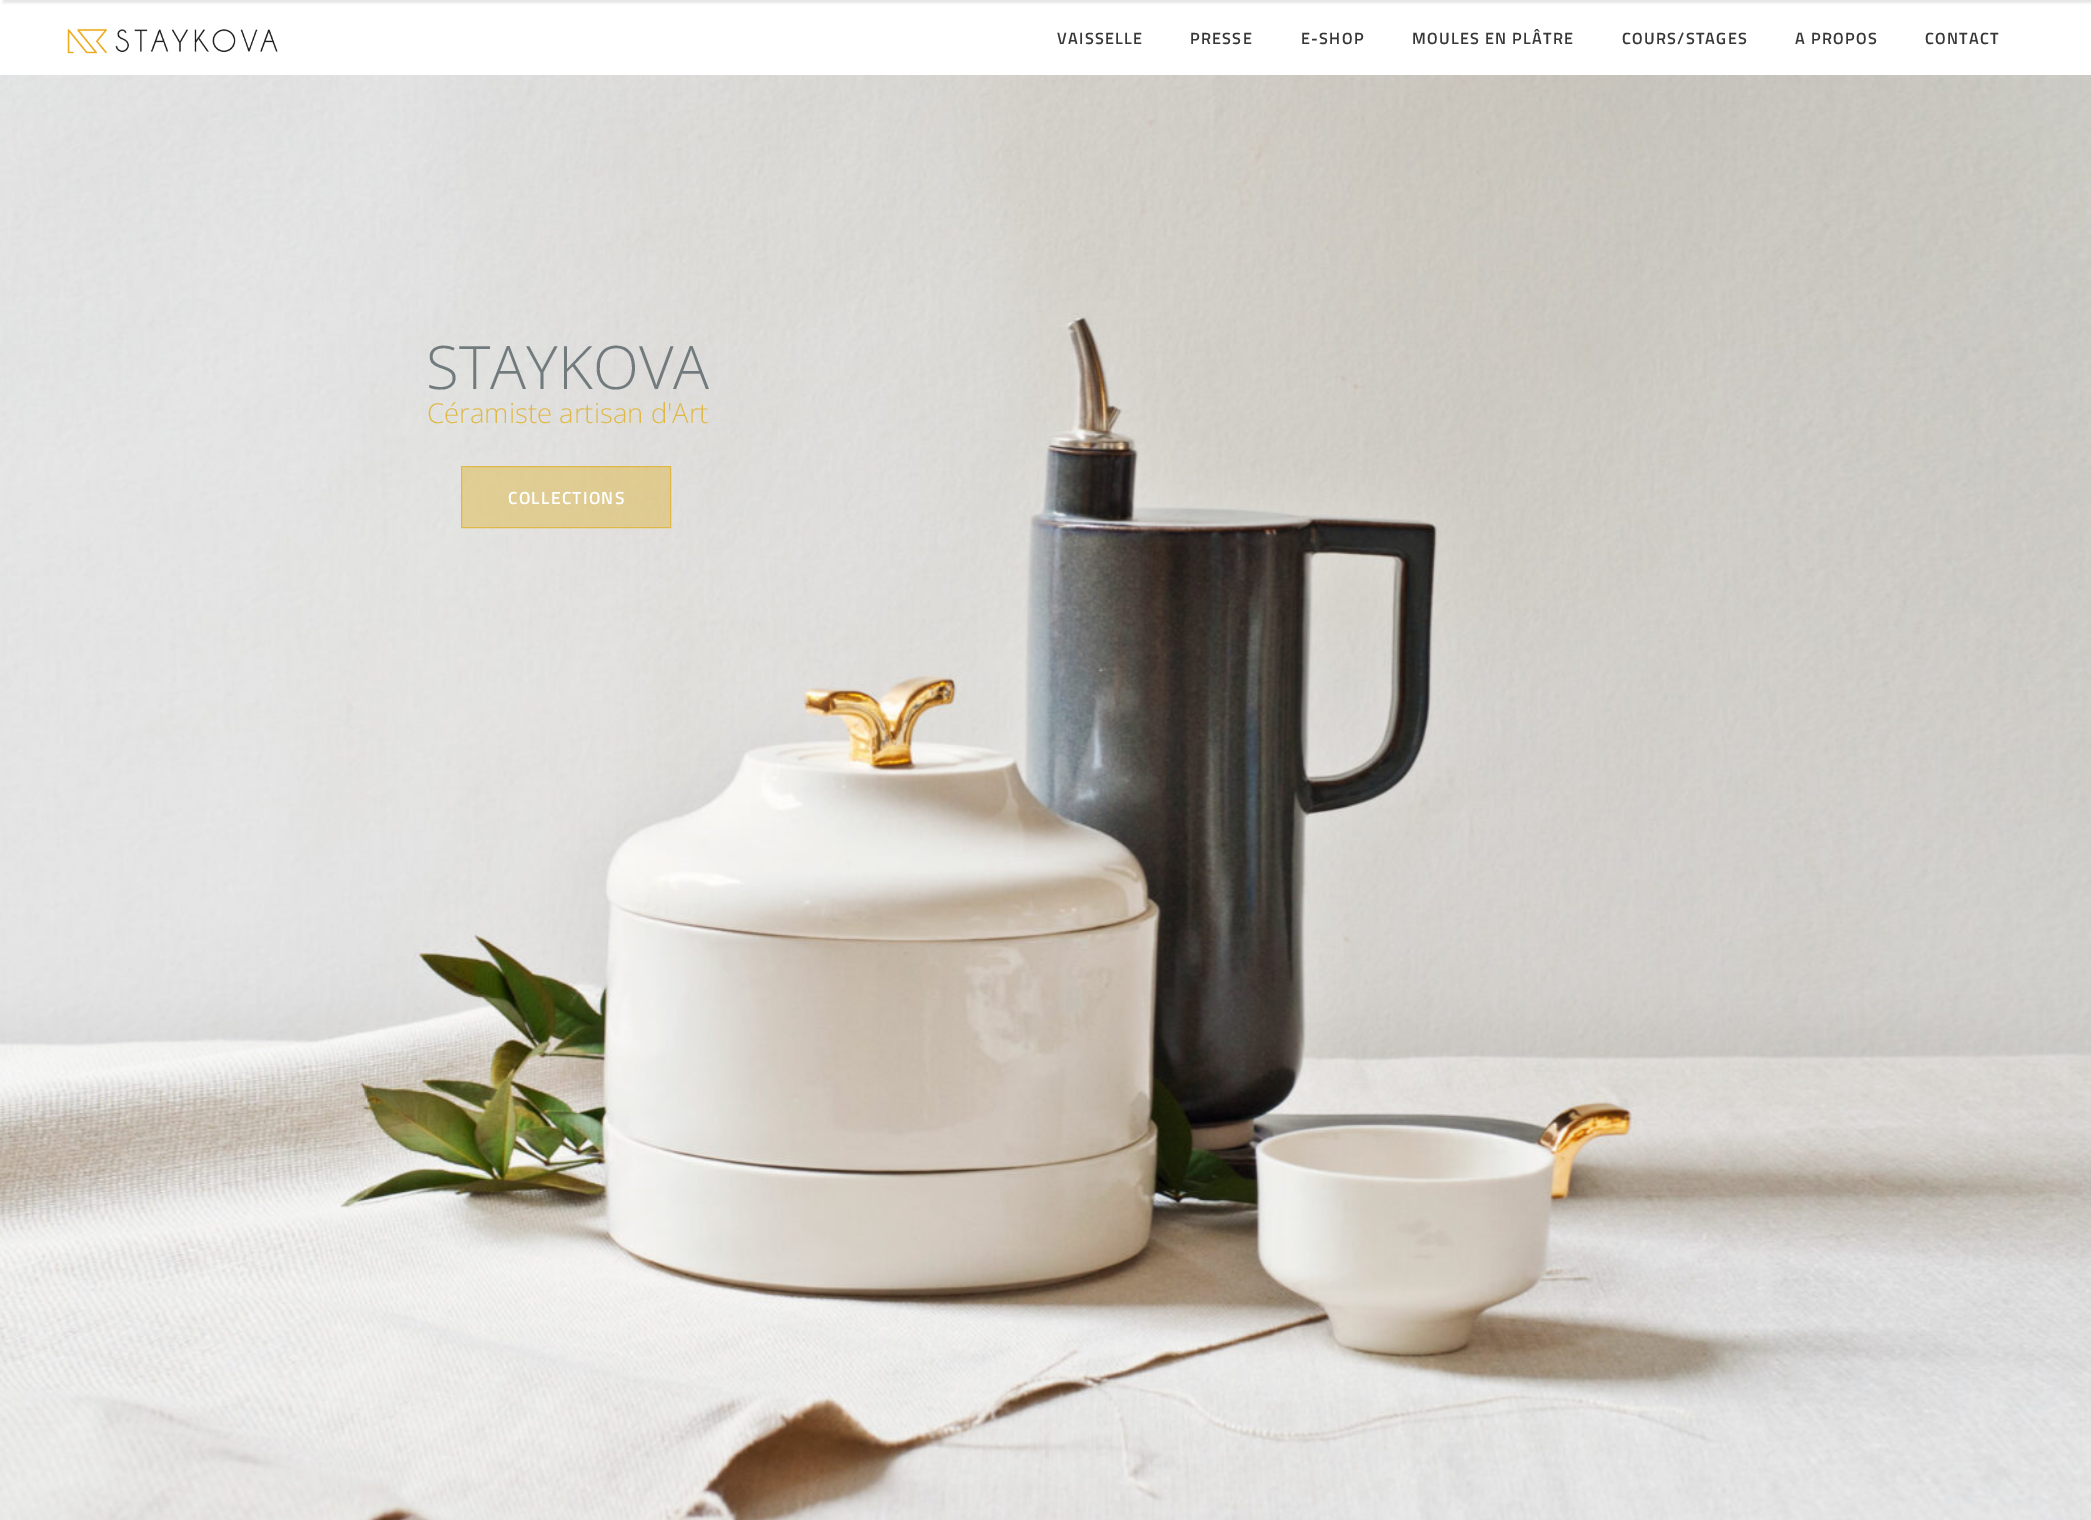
%!PS
<< /PageSize [2091 1520] /PageUsesTransparency true >> setpagedevice
/rgb { dup -16 bitshift 255 div exch dup -8 bitshift 255 and 255 div exch 255 and 255 div setrgbcolor } def
/font { [ exch dup neg 0 0 3 -1 roll 0 0 ] selectfont } def
/text { moveto show } def
/alpha { dup .setfillconstantalpha .setstrokeconstantalpha } def
/roundrect { 5 dict begin { /r /h /w /y /x } { exch def } forall
  x r add y moveto x w add y 2 copy h add r arct x w add y h add x 1 index r arct
  x y h add x y r arct x y 2 copy exch w add exch r arct closepath end } def
/shadow { 12 dict begin { /a /b /q /h /w /y /x } { exch def } forall gsave /was 0 def
  9 -2 -9 { dup b mul 4 div /e exch def 1 sub .425 mul 2.718 exch exp 1 add a .99 .min exch div /now exch def
    1 1 now sub 1 was sub div sub alpha /was now def
    w h .min e 2 mul add 0 gt { x e sub y e sub w e 2 mul add h e 2 mul add
      q e add b .6 mul add w h .min 2 div e add .min 0 .max roundrect fill } if } for grestore end } def
/picture { 5 dict begin { /h /w /y /x /name } { exch def } forall
  gsave x y translate w h scale
  w h 8 [w 0 0 h 0 0] name (r) file false 3 colorimage grestore end } def
0 .pushpdf14devicefilter
0 1520 translate 1 -1 scale
4 setmiterlimit
/s1 { /OpenSans-Light 60 font 16#717A7D rgb } def
/s2 { /OpenSans-Light 27.5 font 16#DFB947 rgb } def
16#FFFFFF rgb
0 0 2091 1520 rectfill
16#000000 rgb
3 -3 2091 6 0 1 0.09 shadow
(pic1.raw) 67 28 211 26 picture
/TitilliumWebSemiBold-SemiBold 16.25 font
16#373737 rgb
1057 44 moveto 1.25 0 (VAISSELLE) ashow
1190 44 moveto 1.25 0 (PRESSE) ashow
1301 44 moveto 1.25 0 (E-SHOP) ashow
1412 44 moveto 1.25 0 (MOULES EN PLÂTRE) ashow
1622 44 moveto 1.25 0 (COURS/STAGES) ashow
1795 44 moveto 1.25 0 (A PROPOS) ashow
1925 44 moveto 1.25 0 (CONTACT) ashow
(pic2.raw) 0 75 2091 1445 picture
s1
(STAYKOVA) 426 389 text
s2
(Céramiste artisan d'Art) 427 423 text
0.5 alpha
461.5 466.5 moveto 670.5 466.5 lineto 670.5 527.5 lineto 461.5 527.5 lineto closepath fill
1 alpha
461.5 466.5 moveto 670.5 466.5 lineto 670.5 527.5 lineto 461.5 527.5 lineto closepath stroke
/TitilliumWebSemiBold-SemiBold 17.5 font
16#FFFFFF rgb
508 504 moveto 1.25 0 (COLLECTIONS) ashow
.poppdf14devicefilter showpage
